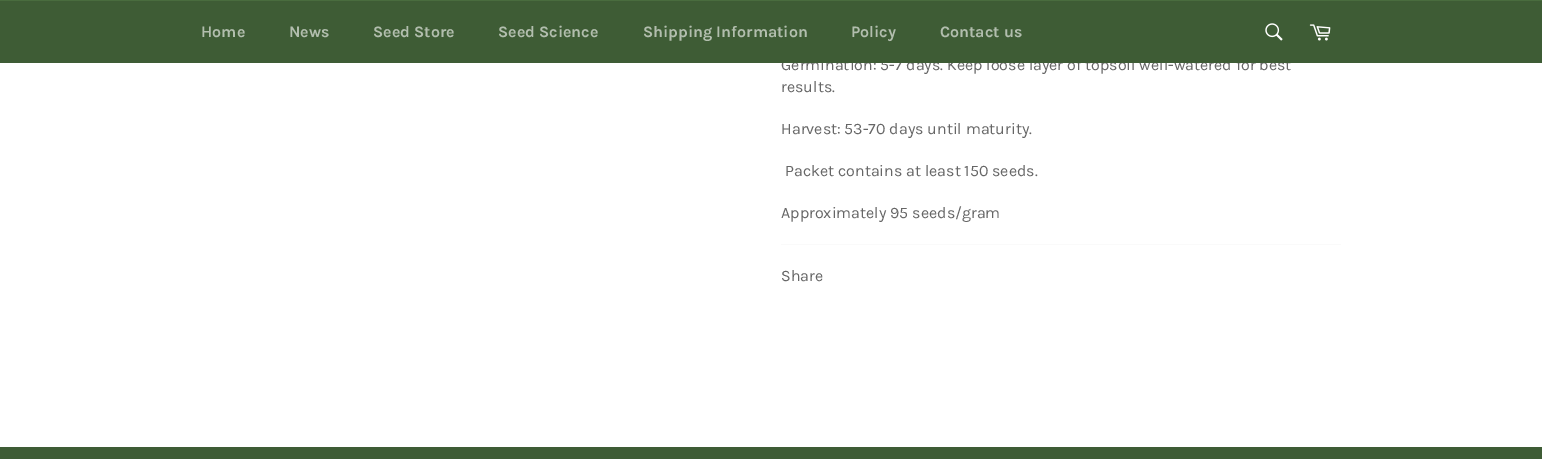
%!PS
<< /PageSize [1542 459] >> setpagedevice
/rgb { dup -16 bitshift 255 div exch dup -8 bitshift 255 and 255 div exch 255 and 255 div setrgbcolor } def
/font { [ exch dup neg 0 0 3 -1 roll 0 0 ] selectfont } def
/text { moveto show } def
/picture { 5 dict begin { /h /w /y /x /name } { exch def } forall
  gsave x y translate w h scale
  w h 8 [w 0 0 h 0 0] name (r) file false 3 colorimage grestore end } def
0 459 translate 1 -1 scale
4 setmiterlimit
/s1 { /Karla-Regular 16 font 16#666666 rgb } def
/s2 { /Karla-Bold 16 font 16#B2BEAE rgb } def
16#FFFFFF rgb
0 0 1542 459 rectfill
s1
(Germination: 5-7 days. Keep loose layer of topsoil well-watered for best) 781 70 text
16#3E5C35 rgb
0 1 1542 62 rectfill
16#496C3E rgb
0 0 1542 1 rectfill
s2
(Home) 201 37 text
(News) 289 37 text
(Seed Store) 373 37 text
(Seed Science) 498 37 text
(Shipping Information) 643 37 text
(Policy) 851 37 text
(Contact us) 940 37 text
(pic1.raw) 1265 23 18 18 picture
(pic2.raw) 1309 24 22 17 picture
s1
(results.) 781 92 text
(Harvest: 53-70 days until maturity.) 781 134 text
(Packet contains at least 150 seeds.) 785 176 text
(Approximately 95 seeds/gram) 781 218 text
16#FAFAFA rgb
781 244 560 1 rectfill
s1
(Share) 781 281 text
16#3E5C35 rgb
0 447 1542 12 rectfill
showpage
